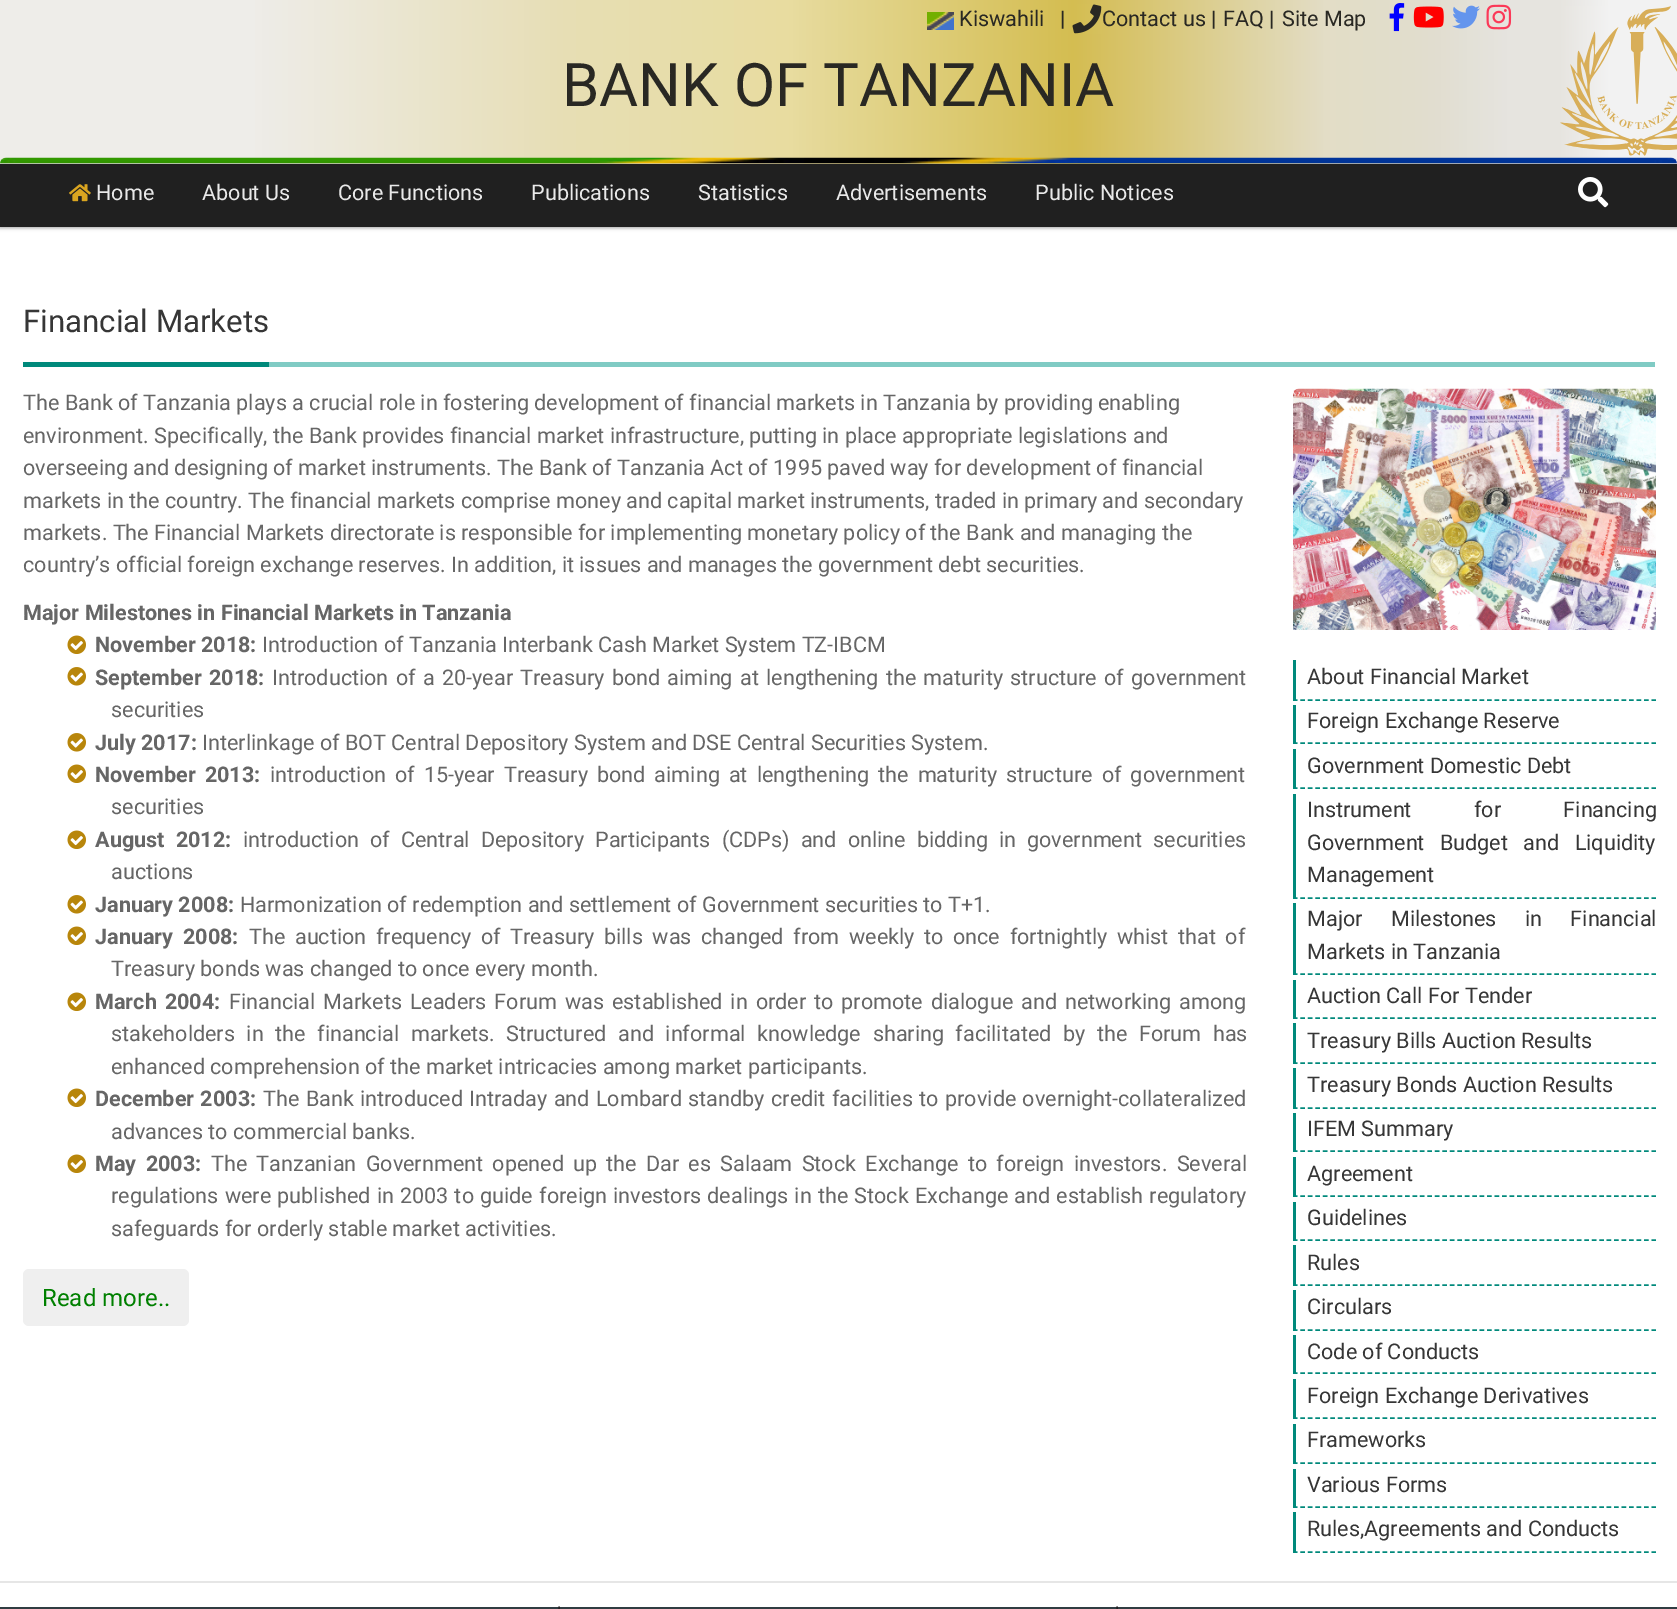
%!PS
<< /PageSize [1677 1609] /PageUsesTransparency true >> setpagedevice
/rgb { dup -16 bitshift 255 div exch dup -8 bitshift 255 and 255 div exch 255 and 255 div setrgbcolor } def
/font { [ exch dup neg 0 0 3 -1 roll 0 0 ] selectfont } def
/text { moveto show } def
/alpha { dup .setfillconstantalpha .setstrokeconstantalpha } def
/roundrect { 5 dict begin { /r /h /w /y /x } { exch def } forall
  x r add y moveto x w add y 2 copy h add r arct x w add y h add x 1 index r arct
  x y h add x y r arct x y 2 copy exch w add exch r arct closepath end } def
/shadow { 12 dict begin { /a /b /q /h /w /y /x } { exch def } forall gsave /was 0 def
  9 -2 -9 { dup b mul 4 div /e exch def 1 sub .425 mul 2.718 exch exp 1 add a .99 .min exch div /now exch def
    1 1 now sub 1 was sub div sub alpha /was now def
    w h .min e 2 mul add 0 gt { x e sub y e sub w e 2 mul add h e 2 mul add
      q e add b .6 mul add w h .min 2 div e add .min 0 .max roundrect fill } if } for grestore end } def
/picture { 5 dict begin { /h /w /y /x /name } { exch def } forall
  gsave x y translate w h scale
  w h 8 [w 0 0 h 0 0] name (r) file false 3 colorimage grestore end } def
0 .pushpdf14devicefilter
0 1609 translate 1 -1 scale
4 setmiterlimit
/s1 { /Roboto-Regular 21.6 font 16#292823 rgb } def
/s2 { /Roboto-Regular 60 font 16#292823 rgb } def
/s3 { /Roboto-Regular 21.6 font 16#E9E9E9 rgb } def
/s4 { /Roboto-Regular 31.25 font 16#363636 rgb } def
/s5 { /Roboto-Regular 21.6 font 16#666666 rgb } def
/s6 { /Roboto-Bold 21.6 font 16#666666 rgb } def
/s7 { /Roboto-Regular 24 font 16#008000 rgb } def
/s8 { /Roboto-Regular 21.6 font 16#363636 rgb } def
16#FFFFFF rgb
0 0 1677 1609 rectfill
gsave 0 0 moveto 1677 0 lineto 1677 164 lineto 0 164 lineto closepath clip newpath
<< /ShadingType 2 /ColorSpace /DeviceRGB /Coords [0 82 1677 82] /Extend [true true] /Function << /FunctionType 3 /Domain [0 1] /Functions [<< /FunctionType 2 /Domain [0 1] /C0 [0.933 0.929 0.914] /C1 [0.933 0.929 0.914] /N 1 >> << /FunctionType 2 /Domain [0 1] /C0 [0.933 0.929 0.914] /C1 [0.933 0.929 0.914] /N 1 >> << /FunctionType 2 /Domain [0 1] /C0 [0.933 0.929 0.914] /C1 [0.906 0.871 0.706] /N 1 >> << /FunctionType 2 /Domain [0 1] /C0 [0.906 0.871 0.706] /C1 [0.91 0.863 0.627] /N 1 >> << /FunctionType 2 /Domain [0 1] /C0 [0.91 0.863 0.627] /C1 [0.831 0.741 0.318] /N 1 >> << /FunctionType 2 /Domain [0 1] /C0 [0.831 0.741 0.318] /C1 [0.89 0.867 0.776] /N 1 >> << /FunctionType 2 /Domain [0 1] /C0 [0.89 0.867 0.776] /C1 [0.882 0.867 0.808] /N 1 >> << /FunctionType 2 /Domain [0 1] /C0 [0.882 0.867 0.808] /C1 [0.902 0.894 0.875] /N 1 >> << /FunctionType 2 /Domain [0 1] /C0 [0.902 0.894 0.875] /C1 [0.902 0.894 0.875] /N 1 >> << /FunctionType 2 /Domain [0 1] /C0 [0.902 0.894 0.875] /C1 [0.949 0.949 0.949] /N 1 >> << /FunctionType 2 /Domain [0 1] /C0 [0.949 0.949 0.949] /C1 [0.949 0.949 0.949] /N 1 >>] /Bounds [0.03 0.15 0.34 0.47 0.64 0.79 0.85 0.9 0.93 0.96] /Encode [0 1 0 1 0 1 0 1 0 1 0 1 0 1 0 1 0 1 0 1 0 1] >> >> shfill grestore
(pic1.raw) 927 12 27 18 picture
s1
(Kiswahili) 959 26 text
(|) 1060 26 text
(pic2.raw) 1072 4 30 30 picture
(Contact us) 1102 26 text
(|) 1211 26 text
(FAQ) 1223 26 text
(|) 1269 26 text
(Site Map) 1282 26 text
(pic3.raw) 1389 3 16 29 picture
(pic4.raw) 1413 6 31 22 picture
(pic5.raw) 1452 5 28 24 picture
(pic6.raw) 1486 4 26 26 picture
s2
(BANK OF TANZANIA) 562 106 text
(pic7.raw) 1560 6 117 150 picture
(pic8.raw) 0 157 1677 7 picture
16#000000 rgb
0 165 1677 63 0 1.5 0.24 shadow
0 165 1677 63 0 2 0.12 shadow
16#202020 rgb
0 164 1677 63 rectfill
(pic9.raw) 69 184 22 18 picture
s3
(Home) 96 200 text
(About Us) 202 200 text
(Core Functions) 338 200 text
(Publications) 531 200 text
(Statistics) 698 200 text
(Advertisements) 836 200 text
(Public Notices) 1035 200 text
(pic10.raw) 1578 177 31 31 picture
16#80CBC4 rgb
269 362 1386 5 rectfill
16#00897B rgb
23 362 246 5 rectfill
s4
(Financial Markets) 23 332 text
s5
(The Bank of Tanzania plays a crucial role in fostering development of financial markets in Tanzania by providing enabling) 23 410 text
(environment. Specifically, the Bank provides financial market infrastructure, putting in place appropriate legislations and) 23 443 text
(overseeing and designing of market instruments. The Bank of Tanzania Act of 1995 paved way for development of financial) 23 475 text
(markets in the country. The financial markets comprise money and capital market instruments, traded in primary and secondary) 23 508 text
(markets. The Financial Markets directorate is responsible for implementing monetary policy of the Bank and managing the) 23 540 text
(country’s official foreign exchange reserves. In addition, it issues and manages the government debt securities.) 23 572 text
s6
(Major Milestones in Financial Markets in Tanzania) 23 620 text
(pic11.raw) 67 635 19 19 picture
(November 2018:) 95 652 text
s5
(Introduction of Tanzania Interbank Cash Market System TZ-IBCM) 262 652 text
(pic12.raw) 67 667 19 19 picture
/Roboto-Bold 21.6 font
95 685 moveto 2 0 32 (September 2018:) widthshow
/Roboto-Regular 21.6 font
272 685 moveto 2 0 32 (Introduction of a 20-year Treasury bond aiming at lengthening the maturity structure of government) widthshow
(securities) 111 717 text
(pic12.raw) 67 733 19 19 picture
s6
(July 2017:) 95 750 text
s5
(Interlinkage of BOT Central Depository System and DSE Central Securities System.) 202 750 text
(pic11.raw) 67 764 19 19 picture
/Roboto-Bold 21.6 font
95 782 moveto 3.75 0 32 (November 2013:) widthshow
/Roboto-Regular 21.6 font
270 782 moveto 3.75 0 32 (introduction of 15-year Treasury bond aiming at lengthening the maturity structure of government) widthshow
(securities) 111 814 text
(pic11.raw) 67 830 19 19 picture
/Roboto-Bold 21.6 font
95 847 moveto 5.75 0 32 (August 2012:) widthshow
/Roboto-Regular 21.6 font
243 847 moveto 5.75 0 32 (introduction of Central Depository Participants \(CDPs\) and online bidding in government securities) widthshow
(auctions) 111 879 text
(pic12.raw) 67 895 19 19 picture
s6
(January 2008:) 95 912 text
s5
(Harmonization of redemption and settlement of Government securities to T+1.) 240 912 text
(pic11.raw) 67 926 19 19 picture
/Roboto-Bold 21.6 font
95 944 moveto 4.25 0 32 (January 2008:) widthshow
/Roboto-Regular 21.6 font
249 944 moveto 4.25 0 32 (The auction frequency of Treasury bills was changed from weekly to once fortnightly whist that of) widthshow
(Treasury bonds was changed to once every month.) 111 976 text
(pic11.raw) 67 992 19 19 picture
/Roboto-Bold 21.6 font
95 1009 moveto 2.6 0 32 (March 2004:) widthshow
/Roboto-Regular 21.6 font
229 1009 moveto 2.6 0 32 (Financial Markets Leaders Forum was established in order to promote dialogue and networking among) widthshow
111 1041 moveto 6.25 0 32 (stakeholders in the financial markets.) widthshow
506 1041 moveto 6.25 0 32 (Structured and informal knowledge sharing facilitated by the Forum has) widthshow
(enhanced comprehension of the market intricacies among market participants.) 111 1074 text
(pic11.raw) 67 1088 19 19 picture
/Roboto-Bold 21.6 font
95 1106 moveto 1 0 32 (December 2003:) widthshow
/Roboto-Regular 21.6 font
263 1106 moveto 1 0 32 (The Bank introduced Intraday and Lombard standby credit facilities to provide overnight-collateralized) widthshow
(advances to commercial banks.) 111 1139 text
(pic11.raw) 67 1154 19 19 picture
/Roboto-Bold 21.6 font
95 1171 moveto 3.9 0 32 (May 2003:) widthshow
/Roboto-Regular 21.6 font
211 1171 moveto 3.9 0 32 (The Tanzanian Government opened up the Dar es Salaam Stock Exchange to foreign investors. Several) widthshow
111 1203 moveto 0.8 0 32 (regulations were published in 2003 to guide foreign investors dealings in the Stock Exchange and establish regulatory) widthshow
(safeguards for orderly stable market activities.) 111 1236 text
16#EFEFEF rgb
23 1269 166 57 6 roundrect fill
s7
(Read more..) 42 1306 text
(pic13.raw) 1293 388 363 242 picture
16#00897B rgb
1.5 setlinewidth
[4.5 2.97] 0 setdash
1293 700 moveto 1656 700 lineto stroke
1293 660 3 41 rectfill
s8
(About Financial Market) 1307 684 text
16#00897B rgb
1293 743 moveto 1656 743 lineto stroke
1293 705 3 39 rectfill
s8
(Foreign Exchange Reserve) 1307 728 text
16#00897B rgb
1293 788 moveto 1656 788 lineto stroke
1293 749 3 40 rectfill
s8
(Government Domestic Debt) 1307 773 text
16#00897B rgb
1293 898 moveto 1656 898 lineto stroke
1293 794 3 105 rectfill
16#363636 rgb
1307 817 moveto 57 0 32 (Instrument for Financing) widthshow
1307 850 moveto 10 0 32 (Government Budget and Liquidity) widthshow
(Management) 1307 882 text
16#00897B rgb
1293 974 moveto 1656 974 lineto stroke
1293 903 3 72 rectfill
16#363636 rgb
1307 926 moveto 23 0 32 (Major Milestones in Financial) widthshow
(Markets in Tanzania) 1307 959 text
16#00897B rgb
1293 1018 moveto 1656 1018 lineto stroke
1293 980 3 39 rectfill
s8
(Auction Call For Tender) 1307 1003 text
16#00897B rgb
1293 1063 moveto 1656 1063 lineto stroke
1293 1023 3 41 rectfill
s8
(Treasury Bills Auction Results) 1307 1048 text
16#00897B rgb
1293 1108 moveto 1656 1108 lineto stroke
1293 1068 3 41 rectfill
s8
(Treasury Bonds Auction Results) 1307 1092 text
16#00897B rgb
1293 1151 moveto 1656 1151 lineto stroke
1293 1113 3 39 rectfill
s8
(IFEM Summary) 1307 1136 text
16#00897B rgb
1293 1196 moveto 1656 1196 lineto stroke
1293 1157 3 40 rectfill
s8
(Agreement) 1307 1181 text
16#00897B rgb
1293 1240 moveto 1656 1240 lineto stroke
1293 1202 3 39 rectfill
s8
(Guidelines) 1307 1225 text
16#00897B rgb
1293 1285 moveto 1656 1285 lineto stroke
1293 1245 3 41 rectfill
s8
(Rules) 1307 1270 text
16#00897B rgb
1293 1330 moveto 1656 1330 lineto stroke
1293 1290 3 41 rectfill
s8
(Circulars) 1307 1314 text
16#00897B rgb
1293 1373 moveto 1656 1373 lineto stroke
1293 1335 3 39 rectfill
s8
(Code of Conducts) 1307 1359 text
16#00897B rgb
1293 1418 moveto 1656 1418 lineto stroke
1293 1379 3 40 rectfill
s8
(Foreign Exchange Derivatives) 1307 1403 text
16#00897B rgb
1293 1463 moveto 1656 1463 lineto stroke
1293 1424 3 40 rectfill
s8
(Frameworks) 1307 1447 text
16#00897B rgb
1293 1507 moveto 1656 1507 lineto stroke
1293 1469 3 39 rectfill
s8
(Various Forms) 1307 1492 text
16#00897B rgb
1293 1552 moveto 1656 1552 lineto stroke
1293 1512 3 41 rectfill
s8
(Rules,Agreements and Conducts) 1307 1536 text
16#E6E6E6 rgb
0 1581 1677 2 rectfill
16#303C42 rgb
0 1607 1677 2 rectfill
16#212122 rgb
[4.5 3.07] 0 setdash
559 1606.5 moveto 559 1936.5 lineto stroke
1117 1606.5 moveto 1117 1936.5 lineto stroke
.poppdf14devicefilter showpage
